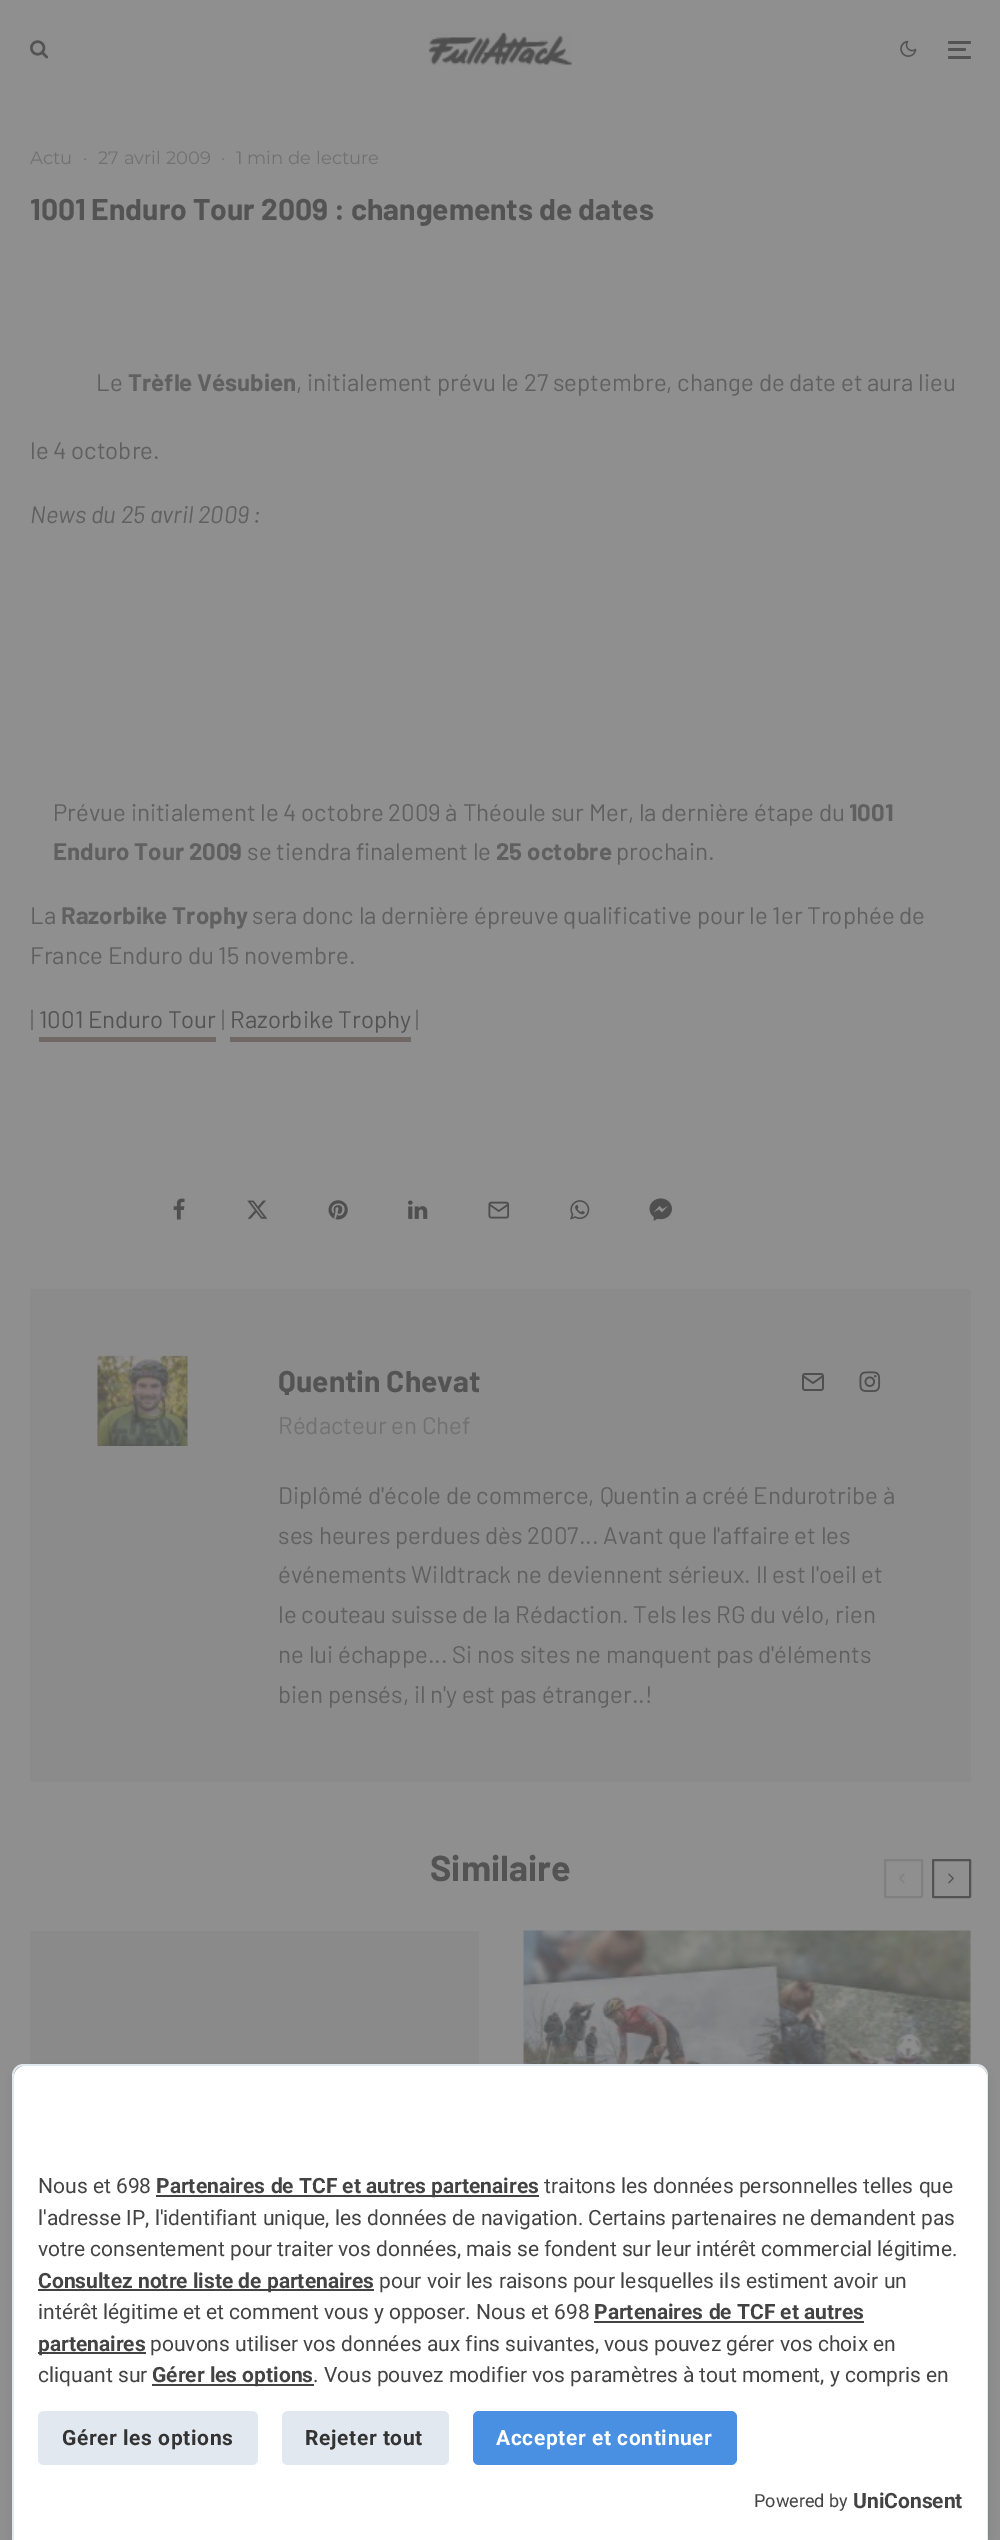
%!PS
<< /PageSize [1000 2540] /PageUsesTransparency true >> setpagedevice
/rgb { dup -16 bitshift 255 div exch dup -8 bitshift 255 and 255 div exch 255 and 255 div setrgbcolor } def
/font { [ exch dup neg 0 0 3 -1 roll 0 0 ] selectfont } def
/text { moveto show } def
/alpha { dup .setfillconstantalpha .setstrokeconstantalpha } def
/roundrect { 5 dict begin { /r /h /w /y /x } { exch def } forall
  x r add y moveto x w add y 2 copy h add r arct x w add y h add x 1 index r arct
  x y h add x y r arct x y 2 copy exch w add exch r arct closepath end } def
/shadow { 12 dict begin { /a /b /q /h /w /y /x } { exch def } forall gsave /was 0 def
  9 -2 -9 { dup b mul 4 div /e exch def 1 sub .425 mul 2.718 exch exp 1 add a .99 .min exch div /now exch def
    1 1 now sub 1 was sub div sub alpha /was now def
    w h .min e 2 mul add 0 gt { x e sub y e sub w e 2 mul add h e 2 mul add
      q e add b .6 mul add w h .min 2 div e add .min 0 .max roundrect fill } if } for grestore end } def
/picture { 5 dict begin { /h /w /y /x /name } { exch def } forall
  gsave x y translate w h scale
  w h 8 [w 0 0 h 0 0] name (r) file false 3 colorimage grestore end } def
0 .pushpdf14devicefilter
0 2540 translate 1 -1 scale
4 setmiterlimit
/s1 { /Montserrat-Regular 18 font 16#717171 rgb } def
/s2 { /Barlow-Bold 30 font 16#535353 rgb } def
/s3 { /Barlow-Regular 24 font 16#606060 rgb } def
/s4 { /Barlow-Bold 24 font 16#606060 rgb } def
/s5 { /Barlow-Italic 24 font 16#606060 rgb } def
/s6 { /Barlow-Regular 24 font 16#535353 rgb } def
/s7 { /Barlow-Regular 24 font 16#717171 rgb } def
/s8 { /Barlow-Bold 36 font 16#535353 rgb } def
/s9 { /Roboto-Regular 21 font 16#434343 rgb } def
/s10 { /Roboto-Bold 21 font 16#434343 rgb } def
/s11 { /Roboto-Regular 18 font 16#434343 rgb } def
16#8F8F8F rgb
0 0 1000 2540 rectfill
(pic1.raw) 30 40 19 19 picture
(pic2.raw) 429 31 143 35 picture
(pic3.raw) 900 40 17 17 picture
16#535353 rgb
948 48 18 3 1.5 roundrect fill
948 41 23 3 1.5 roundrect fill
948 56 23 3 1.5 roundrect fill
s1
(Actu) 30 164 text
(·) 83 164 text
(27 avril 2009) 98 164 text
(·) 221 164 text
(1 min de lecture) 236 164 text
s2
(1001 Enduro Tour 2009 : changements de dates) 30 220 text
s3
(Le) 96 391 text
s4
(Trèfle Vésubien) 128 391 text
s3
(, initialement prévu le 27 septembre, change de date et aura lieu) 296 391 text
(le 4 octobre.) 30 459 text
s5
(News du 25 avril 2009 :) 30 523 text
s3
(Prévue initialement le 4 octobre 2009 à Théoule sur Mer, la dernière étape du) 53 821 text
s4
(1001) 849 821 text
(Enduro Tour 2009) 53 860 text
s3
(se tiendra finalement le) 247 860 text
s4
(25 octobre) 496 860 text
s3
(prochain.) 616 860 text
(La) 30 924 text
s4
(Razorbike Trophy) 61 924 text
s3
(sera donc la dernière épreuve qualificative pour le 1er Trophée de) 252 924 text
(France Enduro du 15 novembre.) 30 964 text
(|) 30 1028 text
s6
(1001 Enduro Tour) 39 1028 text
16#6F6864 rgb
39 1037 177 5 rectfill
s3
(|) 221 1028 text
s6
(Razorbike Trophy) 230 1028 text
16#6F6864 rgb
230 1037 181 5 rectfill
s3
(|) 415 1028 text
(pic4.raw) 173 1198 12 22 picture
(pic5.raw) 247 1200 21 19 picture
(pic6.raw) 328 1200 20 20 picture
(pic7.raw) 408 1200 20 19 picture
(pic8.raw) 488 1201 22 18 picture
(pic9.raw) 570 1200 20 20 picture
(pic10.raw) 649 1198 23 23 picture
16#8B8B8B rgb
30 1289 941 493 rectfill
(pic11.raw) 97 1355 91 91 picture
s2
(Quentin Chevat) 278 1392 text
s7
(Rédacteur en Chef) 278 1434 text
(pic12.raw) 802 1373 22 18 picture
(pic13.raw) 859 1371 22 21 picture
s3
(Diplômé d'école de commerce, Quentin a créé Endurotribe à) 278 1504 text
(ses heures perdues dès 2007... Avant que l'affaire et les) 278 1544 text
(événements Wildtrack ne deviennent sérieux. Il est l'oeil et) 278 1583 text
(le couteau suisse de la Rédaction. Tels les RG du vélo, rien) 278 1623 text
(ne lui échappe... Si nos sites ne manquent pas d'éléments) 278 1663 text
(bien pensés, il n'y est pas étranger..!) 278 1703 text
s8
(Similaire) 430 1881 text
16#808080 rgb
2 setlinewidth
885 1860 37 37 0.5 roundrect stroke
(pic14.raw) 899 1873 6 11 picture
16#535353 rgb
933 1860 37 37 0.5 roundrect stroke
(pic15.raw) 948 1873 6 11 picture
16#8A8A8A rgb
30 1931 449 133 rectfill
969 1931 2 133 rectfill
(pic16.raw) 523 1930 448 134 picture
16#000000 rgb
14 2072 973 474 11 4.5 0.1 shadow
16#FFFFFF rgb
25 2066 moveto 976 2066 lineto 982 2066 987 2071 987 2077 curveto 987 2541 lineto 14 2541 lineto 14 2077 lineto 14 2071 19 2066 25 2066 curveto closepath fill
16#E2E8F0 rgb
24 2064 moveto 976 2064 lineto 983 2064 988 2069 988 2076 curveto 988 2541 lineto 12 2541 lineto 12 2076 lineto 12 2069 17 2064 24 2064 curveto closepath 24 2066 moveto 976 2066 lineto 982 2066 987 2070 987 2076 curveto 987 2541 lineto 14 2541 lineto 14 2076 lineto 14 2070 18 2066 24 2066 curveto closepath eofill
s9
(Nous et 698) 38 2193 text
156 2195 383 2 rectfill
s10
(Partenaires de TCF et autres partenaires) 156 2193 text
s9
(traitons les données personnelles telles que) 544 2193 text
(l'adresse IP, l'identifiant unique, les données de navigation. Certains partenaires ne demandent pas) 38 2225 text
(votre consentement pour traiter vos données, mais se fondent sur leur intérêt commercial légitime.) 38 2256 text
38 2289 336 2 rectfill
s10
(Consultez notre liste de partenaires) 38 2288 text
s9
(pour voir les raisons pour lesquelles ils estiment avoir un) 379 2288 text
(intérêt légitime et et comment vous y opposer. Nous et 698) 38 2319 text
s10
(Partenaires de TCF et autres) 594 2319 text
594 2321 270 2 rectfill
38 2352 108 2 rectfill
(partenaires) 38 2351 text
s9
(pouvons utiliser vos données aux fins suivantes, vous pouvez gérer vos choix en) 150 2351 text
(cliquant sur) 38 2382 text
152 2384 162 2 rectfill
s10
(Gérer les options) 152 2382 text
s9
(. Vous pouvez modifier vos paramètres à tout moment, y compris en) 313 2382 text
16#E2E8F0 rgb
38 2411 220 54 6 roundrect fill
/Roboto-Bold 21 font
16#333333 rgb
62 2445 moveto 0.6 0 (Gérer les options) ashow
16#E2E8F0 rgb
282 2411 167 54 6 roundrect fill
16#333333 rgb
305 2445 moveto 0.6 0 (Rejeter tout) ashow
16#4A90E2 rgb
473 2411 264 54 6 roundrect fill
16#FFFFFF rgb
496 2445 moveto 0.6 0 (Accepter et continuer) ashow
s11
(Powered by) 754 2507 text
s10
(UniConsent) 853 2508 text
.poppdf14devicefilter showpage
